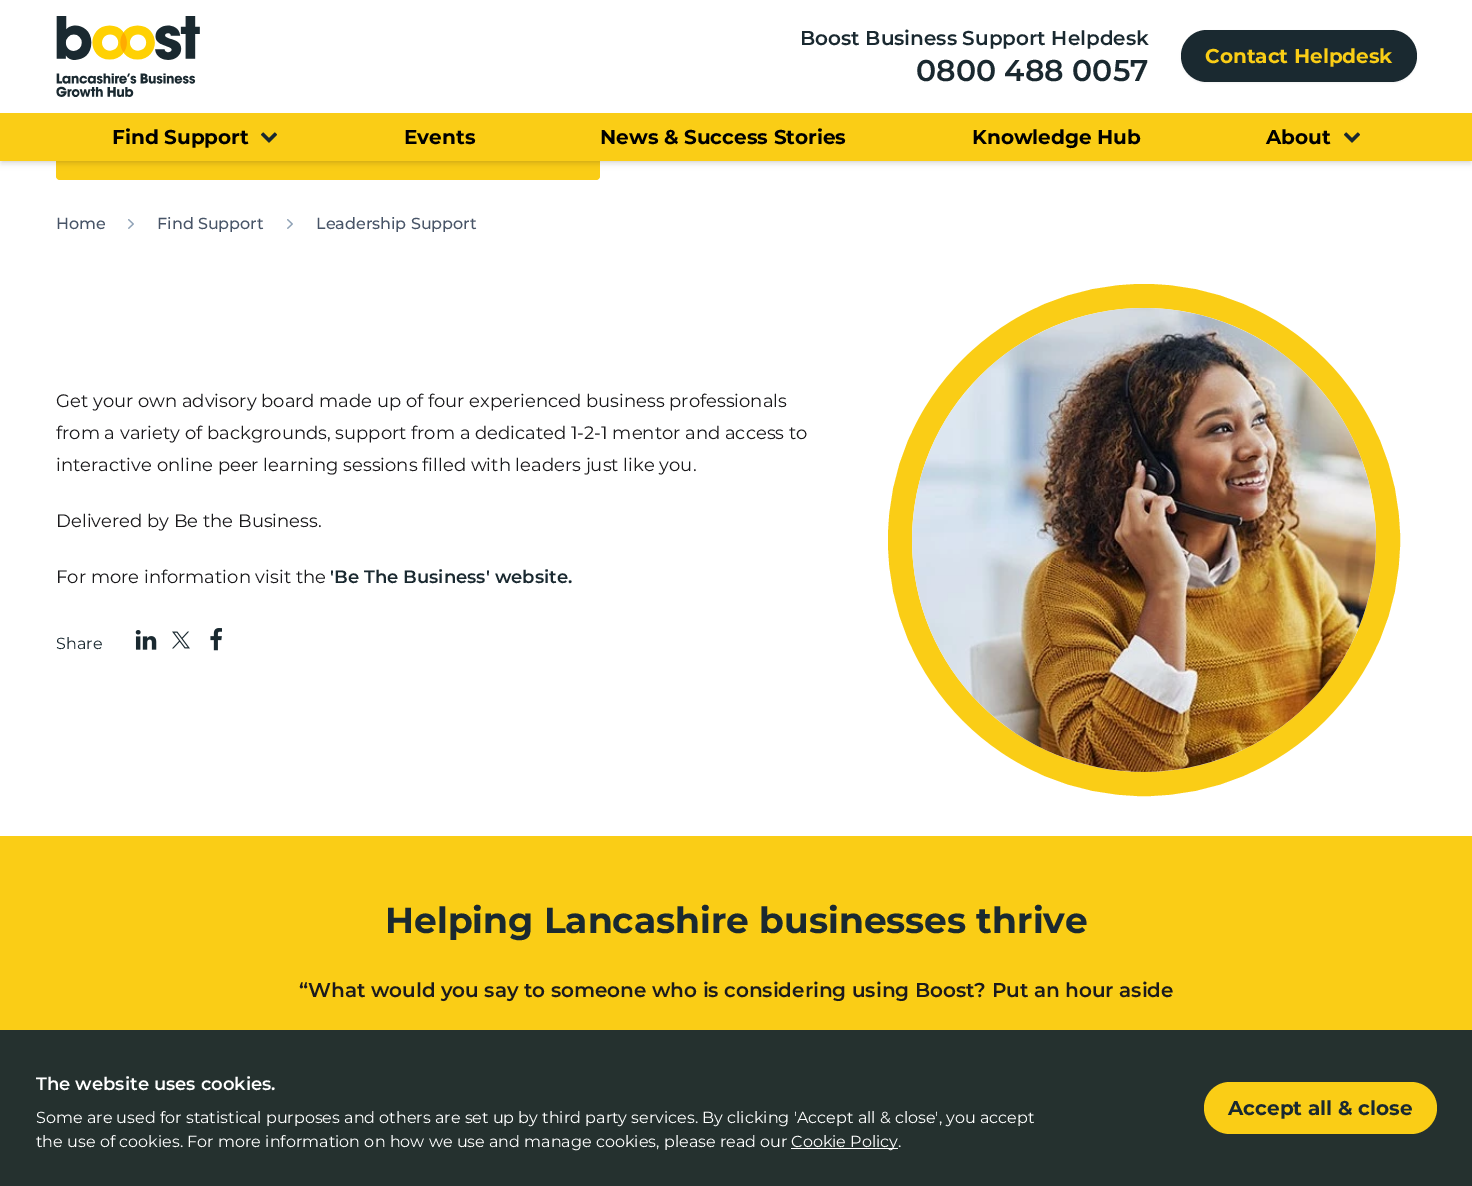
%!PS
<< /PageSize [1472 1186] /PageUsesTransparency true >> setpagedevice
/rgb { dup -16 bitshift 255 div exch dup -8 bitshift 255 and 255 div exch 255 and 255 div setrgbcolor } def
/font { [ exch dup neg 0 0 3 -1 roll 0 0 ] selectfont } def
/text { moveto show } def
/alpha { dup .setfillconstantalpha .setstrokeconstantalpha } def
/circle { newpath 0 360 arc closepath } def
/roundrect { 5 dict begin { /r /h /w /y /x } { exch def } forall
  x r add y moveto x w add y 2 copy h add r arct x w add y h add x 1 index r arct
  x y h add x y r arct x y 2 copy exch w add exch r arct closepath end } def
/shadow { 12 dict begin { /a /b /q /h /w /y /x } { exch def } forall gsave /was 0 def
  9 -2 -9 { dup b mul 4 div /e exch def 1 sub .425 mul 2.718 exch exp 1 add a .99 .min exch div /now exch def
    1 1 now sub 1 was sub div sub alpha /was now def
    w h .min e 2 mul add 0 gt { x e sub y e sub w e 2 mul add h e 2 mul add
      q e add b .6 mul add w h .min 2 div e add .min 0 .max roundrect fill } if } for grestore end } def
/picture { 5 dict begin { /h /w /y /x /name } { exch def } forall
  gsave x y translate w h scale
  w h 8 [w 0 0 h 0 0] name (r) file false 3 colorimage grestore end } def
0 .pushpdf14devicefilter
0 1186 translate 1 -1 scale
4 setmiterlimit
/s1 { /Montserrat-SemiBold 20 font 16#1A2930 rgb } def
/s2 { /Montserrat-SemiBold 30 font 16#1A2930 rgb } def
/s3 { /Montserrat-Bold 20 font 16#FACD16 rgb } def
/s4 { /Montserrat-Bold 20 font 16#000000 rgb } def
/s5 { /Montserrat-Medium 16 font 16#475467 rgb } def
/s6 { /Montserrat-Regular 18 font 16#1B1A1C rgb } def
/s7 { /Montserrat-SemiBold 18 font 16#1A2930 rgb } def
/s8 { /Montserrat-Regular 16 font 16#1A2930 rgb } def
/s9 { /Montserrat-Bold 36 font 16#1A2930 rgb } def
/s10 { /Montserrat-SemiBold 20 font 16#1B1A1C rgb } def
/s11 { /Montserrat-SemiBold 18 font 16#FFFFFF rgb } def
/s12 { /Montserrat-Regular 16 font 16#FFFFFF rgb } def
/s13 { /Montserrat-Bold 20 font 16#1A2930 rgb } def
16#FFFFFF rgb
0 0 1472 1186 rectfill
16#FACD16 rgb
56 -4 544 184 4 roundrect fill
16#000000 rgb
2 4 1468 157 0 2 0.1 shadow
1 5 1470 159 0 3 0.1 shadow
16#FFFFFF rgb
0 0 1472 113 rectfill
(pic1.raw) 56 16 144 81 picture
s1
(Boost Business Support Helpdesk) 800 45 text
s2
(0800 488 0057) 916 81 text
16#000000 rgb
1181 31 236 52 26 1 0.05 shadow
16#1A2930 rgb
1181 30 236 52 26 roundrect fill
s3
(Contact Helpdesk) 1205 63 text
0 113 1472 48 rectfill
s4
(Find Support) 112 144 text
(pic2.raw) 261 132 16 11 picture
(Events) 404 144 text
(News & Success Stories) 600 144 text
(Knowledge Hub) 972 144 text
(About) 1266 144 text
(pic2.raw) 1344 132 16 11 picture
s5
(Home) 56 229 text
(pic3.raw) 128 219 6 10 picture
(Find Support) 157 229 text
(pic3.raw) 287 219 6 10 picture
(Leadership Support) 316 229 text
s6
(Get your own advisory board made up of four experienced business professionals) 56 407 text
(from a variety of backgrounds, support from a dedicated 1-2-1 mentor and access to) 56 439 text
(interactive online peer learning sessions filled with leaders just like you.) 56 471 text
(Delivered by Be the Business.) 56 527 text
(For more information visit the) 56 583 text
s7
('Be The Business' website.) 330 583 text
s8
(Share) 56 649 text
(pic4.raw) 135 630 22 20 picture
(pic5.raw) 172 631 18 18 picture
(pic6.raw) 210 628 12 23 picture
16#FACD16 rgb
24 setlinewidth
1144 540 244 circle stroke
(pic7.raw) 912 308 464 464 picture
0 836 1472 350 rectfill
s9
(Helping Lancashire businesses thrive) 385 933 text
s10
(“What would you say to someone who is considering using Boost? Put an hour aside) 299 997 text
0.95 alpha
16#1A2930 rgb
0 1030 1472 156 rectfill
1 alpha
s11
(The website uses cookies.) 36 1090 text
s12
(Some are used for statistical purposes and others are set up by third party services. By clicking 'Accept all & close', you accept) 36 1123 text
(the use of cookies. For more information on how we use and manage cookies, please read our) 36 1147 text
791 1148 107 1 rectfill
(Cookie Policy.) 791 1147 text
16#FACD16 rgb
1204 1082 233 52 26 roundrect fill
s13
(Accept all & close) 1228 1115 text
.poppdf14devicefilter showpage
